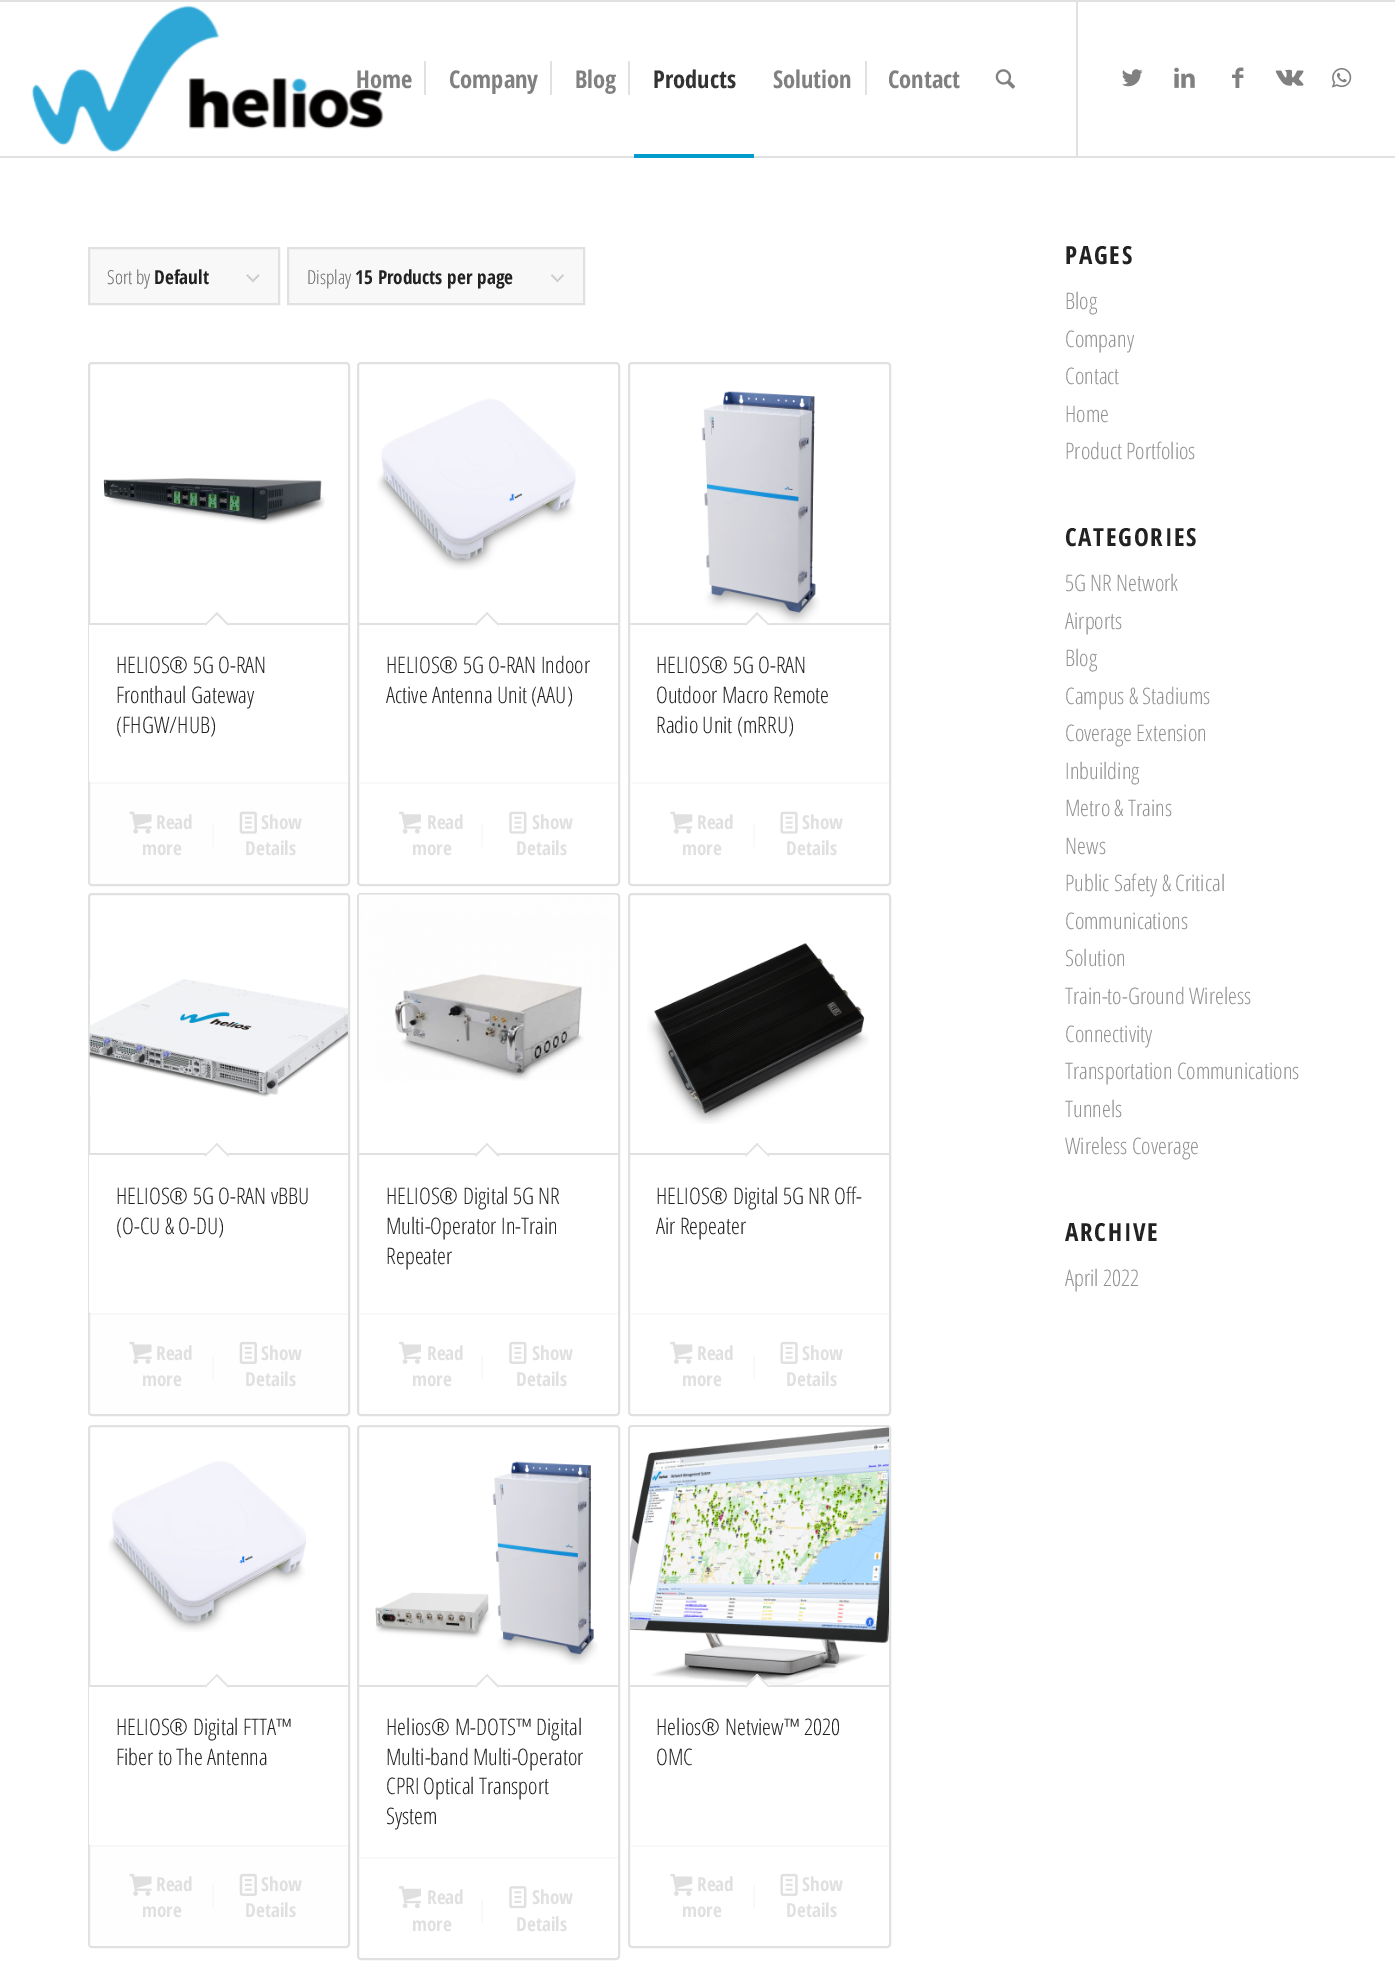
%!PS
<< /PageSize [1395 1980] /PageUsesTransparency true >> setpagedevice
/rgb { dup -16 bitshift 255 div exch dup -8 bitshift 255 and 255 div exch 255 and 255 div setrgbcolor } def
/font { [ exch dup neg 0 0 3 -1 roll 0 0 ] selectfont } def
/text { moveto show } def
/alpha { dup .setfillconstantalpha .setstrokeconstantalpha } def
/roundrect { 5 dict begin { /r /h /w /y /x } { exch def } forall
  x r add y moveto x w add y 2 copy h add r arct x w add y h add x 1 index r arct
  x y h add x y r arct x y 2 copy exch w add exch r arct closepath end } def
/picture { 5 dict begin { /h /w /y /x /name } { exch def } forall
  gsave x y translate w h scale
  w h 8 [w 0 0 h 0 0] name (r) file false 3 colorimage grestore end } def
0 .pushpdf14devicefilter
0 1980 translate 1 -1 scale
4 setmiterlimit
/s1 { /OpenSansCondensed-Bold 24.5 font 16#808080 rgb } def
/s2 { /OpenSansCondensed-Bold 24.5 font 16#333333 rgb } def
/s3 { /OpenSansCondensed-Light 19.25 font 16#666666 rgb } def
/s4 { /OpenSansCondensed-Bold 19.25 font 16#222222 rgb } def
/s5 { /OpenSansCondensed-Light 22.75 font 16#222222 rgb } def
/s6 { /OpenSansCondensed-Bold 19.25 font 16#E0E0E0 rgb } def
/s7 { /OpenSansCondensed-Light 22.75 font 16#919191 rgb } def
16#FFFFFF rgb
0 0 1395 1980 rectfill
16#E1E1E1 rgb
0 0 1395 2 rectfill
0 156 1395 2 rectfill
(pic1.raw) 31 5 353 148 picture
1076 2 2 154 rectfill
s1
(Home) 356 88 text
(Company) 449 88 text
16#E1E1E1 rgb
424 61 2 34 rectfill
s1
(Blog) 575 88 text
16#E1E1E1 rgb
550 61 2 34 rectfill
s2
(Products) 653 88 text
16#E1E1E1 rgb
628 61 2 34 rectfill
16#049CCA rgb
634 154 120 4 rectfill
s1
(Solution) 773 88 text
(Contact) 888 88 text
16#E1E1E1 rgb
865 61 2 34 rectfill
(pic2.raw) 995 69 20 20 picture
(pic3.raw) 1122 69 21 18 picture
(pic4.raw) 1174 67 21 21 picture
(pic5.raw) 1232 67 12 21 picture
(pic6.raw) 1275 69 29 17 picture
(pic7.raw) 1331 68 21 20 picture
16#F8F8F8 rgb
90 249 188 54 rectfill
(pic8.raw) 246 274 14 9 picture
16#E1E1E1 rgb
2 setlinewidth
89 248 190 56 rectstroke
s3
(Sort by) 107 284 text
s4
(Default) 154 284 text
16#F8F8F8 rgb
289 249 294 54 rectfill
(pic9.raw) 551 274 13 9 picture
16#E1E1E1 rgb
288 248 296 56 rectstroke
s3
(Display) 307 284 text
s4
(15 Products per page) 355 284 text
16#E1E1E1 rgb
89 363 260 522 3 roundrect stroke
(pic10.raw) 103 478 222 47 picture
16#FFFFFF rgb
89 623 moveto 348 623 lineto 348 780 lineto 348 781 347 782 346 782 curveto 91 782 lineto 90 782 89 781 89 780 curveto closepath fill
16#E1E1E1 rgb
89 623 259 2 rectfill
16#FFFFFF rgb
217 612 moveto 229 624.5 lineto 217 637 lineto 204.5 624.5 lineto closepath fill
16#E1E1E1 rgb
217 612 moveto 229 624.5 lineto 228 625.5 lineto 215.5 613.5 lineto closepath fill
217 612 moveto 218 613.5 lineto 205.5 625.5 lineto 204.5 624.5 lineto closepath fill
s5
(HELIOS® 5G O-RAN) 116 673 text
(Fronthaul Gateway) 116 703 text
(\(FHGW/HUB\)) 116 733 text
0.2 alpha
16#F8F8F8 rgb
89 782 moveto 348 782 lineto 348 882 lineto 348 883 347 884 346 884 curveto 91 884 lineto 90 884 89 883 89 882 curveto closepath fill
16#E1E1E1 rgb
89 782 259 2 rectfill
1 alpha
(pic11.raw) 129 811 23 23 picture
s6
(Read) 156 829 text
(more) 142 855 text
16#F9F9F9 rgb
212 823 2 24 rectfill
(pic12.raw) 239 811 18 23 picture
s6
(Show) 261 829 text
(Details) 245 855 text
16#E1E1E1 rgb
358 363 261 522 3 roundrect stroke
(pic13.raw) 377 398 199 172 picture
359 623 259 2 rectfill
16#FFFFFF rgb
487 612 moveto 499.5 624.5 lineto 487 637 lineto 474.5 624.5 lineto closepath fill
16#E1E1E1 rgb
487 612 moveto 499.5 624.5 lineto 498 625.5 lineto 486 613.5 lineto closepath fill
487 612 moveto 488 613.5 lineto 476 625.5 lineto 474.5 624.5 lineto closepath fill
s5
(HELIOS® 5G O-RAN Indoor) 386 673 text
(Active Antenna Unit \(AAU\)) 386 703 text
16#F9F9F9 rgb
359 782 259 2 rectfill
(pic14.raw) 399 811 22 23 picture
s6
(Read) 427 829 text
(more) 412 855 text
16#F9F9F9 rgb
481 823 2 24 rectfill
(pic15.raw) 509 811 18 23 picture
s6
(Show) 532 829 text
(Details) 516 855 text
16#E1E1E1 rgb
629 363 261 522 3 roundrect stroke
(pic16.raw) 701 391 119 232 picture
630 623 259 2 rectfill
16#FFFFFF rgb
757 612 moveto 769.5 624.5 lineto 757 637 lineto 745 624.5 lineto closepath fill
16#E1E1E1 rgb
757 612 moveto 769.5 624.5 lineto 768.5 625.5 lineto 756 613.5 lineto closepath fill
757 612 moveto 758.5 613.5 lineto 746 625.5 lineto 745 624.5 lineto closepath fill
s5
(HELIOS® 5G O-RAN) 656 673 text
(Outdoor Macro Remote) 656 703 text
(Radio Unit \(mRRU\)) 656 733 text
16#F9F9F9 rgb
630 782 259 2 rectfill
(pic17.raw) 670 811 23 23 picture
s6
(Read) 697 829 text
(more) 682 855 text
16#F9F9F9 rgb
753 823 2 24 rectfill
(pic18.raw) 780 811 18 23 picture
s6
(Show) 802 829 text
(Details) 786 855 text
16#E1E1E1 rgb
89 894 260 521 3 roundrect stroke
(pic19.raw) 89 979 259 118 picture
16#FFFFFF rgb
89 1153 moveto 348 1153 lineto 348 1311 lineto 348 1312 347 1313 346 1313 curveto 91 1313 lineto 90 1313 89 1312 89 1311 curveto closepath fill
16#E1E1E1 rgb
89 1153 259 2 rectfill
16#FFFFFF rgb
217 1143 moveto 229 1155.5 lineto 217 1167.5 lineto 204.5 1155.5 lineto closepath fill
16#E1E1E1 rgb
217 1143 moveto 229 1155.5 lineto 228 1156.5 lineto 215.5 1144 lineto closepath fill
217 1143 moveto 218 1144 lineto 205.5 1156.5 lineto 204.5 1155.5 lineto closepath fill
s5
(HELIOS® 5G O-RAN vBBU) 116 1204 text
(\(O-CU & O-DU\)) 116 1234 text
0.2 alpha
16#F8F8F8 rgb
89 1313 moveto 348 1313 lineto 348 1412 lineto 348 1413 347 1414 346 1414 curveto 91 1414 lineto 90 1414 89 1413 89 1412 curveto closepath fill
16#E1E1E1 rgb
89 1313 259 2 rectfill
1 alpha
(pic20.raw) 129 1341 23 23 picture
s6
(Read) 156 1360 text
(more) 142 1386 text
16#F9F9F9 rgb
212 1355 2 24 rectfill
(pic21.raw) 239 1341 18 23 picture
s6
(Show) 261 1360 text
(Details) 245 1386 text
16#E1E1E1 rgb
358 894 261 521 3 roundrect stroke
(pic22.raw) 359 894 258 187 picture
359 1153 259 2 rectfill
16#FFFFFF rgb
487 1143 moveto 499.5 1155.5 lineto 487 1167.5 lineto 474.5 1155.5 lineto closepath fill
16#E1E1E1 rgb
487 1143 moveto 499.5 1155.5 lineto 498 1156.5 lineto 486 1144 lineto closepath fill
487 1143 moveto 488 1144 lineto 476 1156.5 lineto 474.5 1155.5 lineto closepath fill
s5
(HELIOS® Digital 5G NR) 386 1204 text
(Multi-Operator In-Train) 386 1234 text
(Repeater) 386 1264 text
16#F9F9F9 rgb
359 1313 259 2 rectfill
(pic23.raw) 399 1341 22 23 picture
s6
(Read) 427 1360 text
(more) 412 1386 text
16#F9F9F9 rgb
481 1355 2 24 rectfill
(pic24.raw) 509 1341 18 23 picture
s6
(Show) 532 1360 text
(Details) 516 1386 text
16#E1E1E1 rgb
629 894 261 521 3 roundrect stroke
(pic25.raw) 647 943 222 181 picture
630 1153 259 2 rectfill
16#FFFFFF rgb
757 1143 moveto 769.5 1155.5 lineto 757 1167.5 lineto 745 1155.5 lineto closepath fill
16#E1E1E1 rgb
757 1143 moveto 769.5 1155.5 lineto 768.5 1156.5 lineto 756 1144 lineto closepath fill
757 1143 moveto 758.5 1144 lineto 746 1156.5 lineto 745 1155.5 lineto closepath fill
s5
(HELIOS® Digital 5G NR Off-) 656 1204 text
(Air Repeater) 656 1234 text
16#F9F9F9 rgb
630 1313 259 2 rectfill
(pic26.raw) 670 1341 23 23 picture
s6
(Read) 697 1360 text
(more) 682 1386 text
16#F9F9F9 rgb
753 1355 2 24 rectfill
(pic27.raw) 780 1341 18 23 picture
s6
(Show) 802 1360 text
(Details) 786 1386 text
16#E1E1E1 rgb
89 1426 260 521 3 roundrect stroke
(pic28.raw) 108 1461 198 171 picture
16#FFFFFF rgb
89 1685 moveto 348 1685 lineto 348 1843 lineto 348 1844 347 1845 346 1845 curveto 91 1845 lineto 90 1845 89 1844 89 1843 curveto closepath fill
16#E1E1E1 rgb
89 1685 259 2 rectfill
16#FFFFFF rgb
217 1674 moveto 229 1686.5 lineto 217 1698.5 lineto 204.5 1686.5 lineto closepath fill
16#E1E1E1 rgb
217 1674 moveto 229 1686.5 lineto 228 1687.5 lineto 215.5 1675 lineto closepath fill
217 1674 moveto 218 1675 lineto 205.5 1687.5 lineto 204.5 1686.5 lineto closepath fill
s5
(HELIOS® Digital FTTA™) 116 1735 text
(Fiber to The Antenna) 116 1765 text
0.2 alpha
16#F8F8F8 rgb
89 1845 moveto 348 1845 lineto 348 1944 lineto 348 1945 347 1946 346 1946 curveto 91 1946 lineto 90 1946 89 1945 89 1944 curveto closepath fill
16#E1E1E1 rgb
89 1845 259 2 rectfill
1 alpha
(pic20.raw) 129 1873 23 23 picture
s6
(Read) 156 1891 text
(more) 142 1917 text
16#F9F9F9 rgb
212 1885 2 24 rectfill
(pic21.raw) 239 1873 18 23 picture
s6
(Show) 261 1891 text
(Details) 245 1917 text
16#E1E1E1 rgb
358 1426 261 533 3 roundrect stroke
(pic29.raw) 375 1461 223 204 picture
359 1685 259 2 rectfill
16#FFFFFF rgb
487 1674 moveto 499.5 1686.5 lineto 487 1698.5 lineto 474.5 1686.5 lineto closepath fill
16#E1E1E1 rgb
487 1674 moveto 499.5 1686.5 lineto 498 1687.5 lineto 486 1675 lineto closepath fill
487 1674 moveto 488 1675 lineto 476 1687.5 lineto 474.5 1686.5 lineto closepath fill
s5
(Helios® M-DOTS™ Digital) 386 1735 text
(Multi-band Multi-Operator) 386 1765 text
(CPRI Optical Transport) 386 1794 text
(System) 386 1824 text
16#F9F9F9 rgb
359 1857 259 2 rectfill
(pic30.raw) 399 1886 22 23 picture
s6
(Read) 427 1904 text
(more) 412 1931 text
16#F9F9F9 rgb
481 1899 2 24 rectfill
(pic31.raw) 509 1886 18 23 picture
s6
(Show) 532 1904 text
(Details) 516 1931 text
16#E1E1E1 rgb
629 1426 261 521 3 roundrect stroke
(pic32.raw) 630 1427 259 258 picture
630 1685 259 2 rectfill
16#FFFFFF rgb
757 1674 moveto 769.5 1686.5 lineto 757 1698.5 lineto 745 1686.5 lineto closepath fill
16#E1E1E1 rgb
757 1674 moveto 769.5 1686.5 lineto 768.5 1687.5 lineto 756 1675 lineto closepath fill
757 1674 moveto 758.5 1675 lineto 746 1687.5 lineto 745 1686.5 lineto closepath fill
s5
(Helios® Netview™ 2020) 656 1735 text
(OMC) 656 1765 text
16#F9F9F9 rgb
630 1845 259 2 rectfill
(pic26.raw) 670 1873 23 23 picture
s6
(Read) 697 1891 text
(more) 682 1917 text
16#F9F9F9 rgb
753 1885 2 24 rectfill
(pic27.raw) 780 1873 18 23 picture
s6
(Show) 802 1891 text
(Details) 786 1917 text
/OpenSansCondensed-Bold 25 font
16#222222 rgb
1065 264 moveto 1.75 0 (PAGES) ashow
s7
(Blog) 1065 309 text
(Company) 1065 347 text
(Contact) 1065 384 text
(Home) 1065 422 text
(Product Portfolios) 1065 459 text
/OpenSansCondensed-Bold 25 font
16#222222 rgb
1065 546 moveto 1.75 0 (CATEGORIES) ashow
s7
(5G NR Network) 1065 591 text
(Airports) 1065 629 text
(Blog) 1065 666 text
(Campus & Stadiums) 1065 704 text
(Coverage Extension) 1065 741 text
(Inbuilding) 1065 779 text
(Metro & Trains) 1065 816 text
(News) 1065 854 text
(Public Safety & Critical) 1065 891 text
(Communications) 1065 929 text
(Solution) 1065 966 text
(Train-to-Ground Wireless) 1065 1004 text
(Connectivity) 1065 1042 text
(Transportation Communications) 1065 1079 text
(Tunnels) 1065 1117 text
(Wireless Coverage) 1065 1154 text
/OpenSansCondensed-Bold 25 font
16#222222 rgb
1065 1241 moveto 1.75 0 (ARCHIVE) ashow
s7
(April 2022) 1065 1286 text
.poppdf14devicefilter showpage
